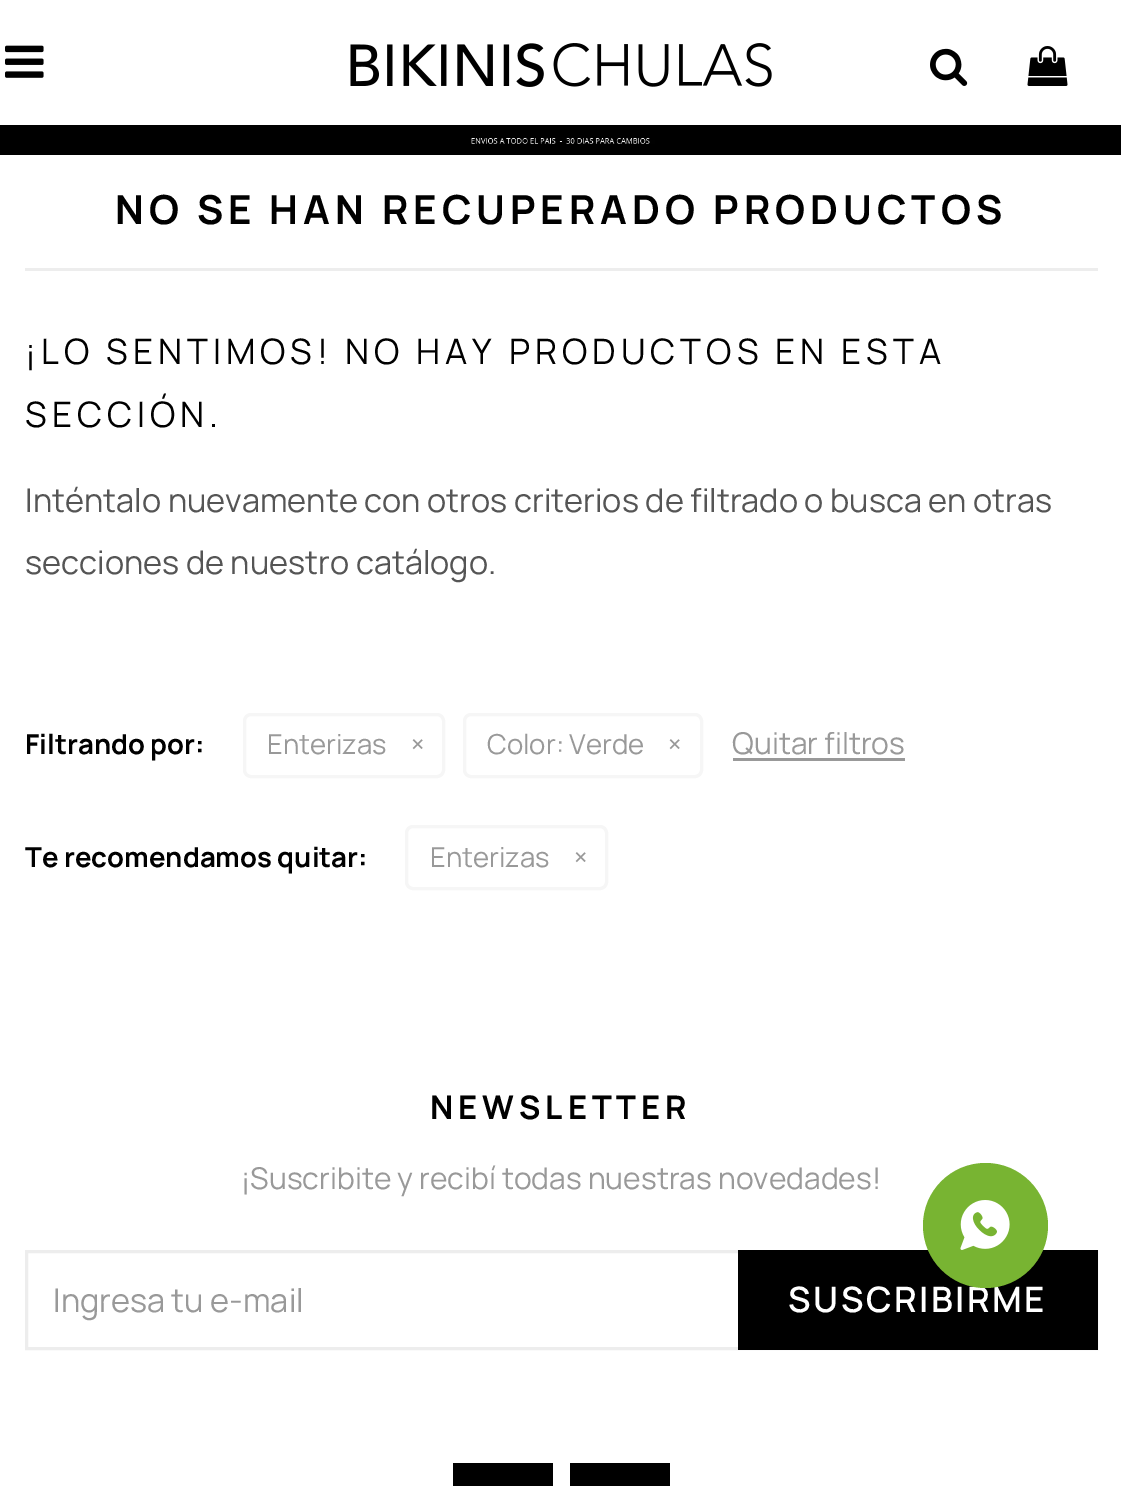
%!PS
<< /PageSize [1121 1486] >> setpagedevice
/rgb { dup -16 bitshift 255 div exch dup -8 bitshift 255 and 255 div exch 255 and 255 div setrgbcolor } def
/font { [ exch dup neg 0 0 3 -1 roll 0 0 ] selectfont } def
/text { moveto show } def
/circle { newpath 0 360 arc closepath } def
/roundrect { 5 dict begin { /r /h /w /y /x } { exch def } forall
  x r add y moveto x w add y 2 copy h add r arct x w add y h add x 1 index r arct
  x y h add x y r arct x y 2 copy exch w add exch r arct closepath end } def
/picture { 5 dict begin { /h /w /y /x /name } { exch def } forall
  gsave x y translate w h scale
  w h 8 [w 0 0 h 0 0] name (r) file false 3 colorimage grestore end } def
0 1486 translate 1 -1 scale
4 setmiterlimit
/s1 { /Manrope-Regular 32.5 font 16#555555 rgb } def
/s2 { /Manrope-Bold 27.5 font 16#000000 rgb } def
/s3 { /Manrope-Regular 27.5 font 16#999999 rgb } def
/s4 { /Manrope-Regular 30 font 16#999999 rgb } def
/s5 { /Manrope-Regular 32.5 font 16#999999 rgb } def
16#FFFFFF rgb
0 0 1121 1486 rectfill
(pic1.raw) 5 45 39 33 picture
(pic2.raw) 350 43 422 44 picture
(pic3.raw) 930 48 38 38 picture
(pic4.raw) 1027 46 41 40 picture
(pic5.raw) 0 125 1121 30 picture
16#EDEDED rgb
25 268 1073 3 rectfill
/Manrope-Bold 40 font
16#000000 rgb
115 224 moveto 5 0 (NO SE HAN RECUPERADO PRODUCTOS) ashow
/Manrope-Regular 35 font
25 364 moveto 5 0 (¡LO SENTIMOS! NO HAY PRODUCTOS EN ESTA) ashow
25 427 moveto 5 0 (SECCIÓN.) ashow
s1
(Inténtalo nuevamente con otros criterios de filtrado o busca en otras) 25 512 text
(secciones de nuestro catálogo.) 25 574 text
s2
(Filtrando por:) 25 754 text
16#F6F6F6 rgb
3 setlinewidth
244.5 714.5 199 62 6.5 roundrect stroke
s3
(Enterizas) 267 754 text
(×) 411 754 text
16#F6F6F6 rgb
464.5 714.5 237 62 6.5 roundrect stroke
s3
(Color: Verde) 487 754 text
(×) 668 754 text
s4
(Quitar filtros) 732 754 text
733 758 172 3 rectfill
s2
(Te recomendamos quitar:) 25 867 text
16#F6F6F6 rgb
406.5 826.5 200 62 6.5 roundrect stroke
s3
(Enterizas) 430 867 text
(×) 574 867 text
/Manrope-Bold 32.5 font
16#000000 rgb
430 1119 moveto 5 0 (NEWSLETTER) ashow
s4
(¡Suscribite y recibí todas nuestras novedades!) 241 1189 text
16#EDEDED rgb
26.5 1251.5 1070 97 rectstroke
s5
(Ingresa tu e-mail) 53 1312 text
16#000000 rgb
738 1250 360 100 rectfill
/Manrope-SemiBold 35 font
16#FFFFFF rgb
788 1312 moveto 2.5 0 (SUSCRIBIRME) ashow
16#000000 rgb
453 1463 100 23 rectfill
570 1463 100 23 rectfill
16#78B432 rgb
985.5 1225.5 62.5 circle fill
(pic6.raw) 960 1200 50 50 picture
showpage
